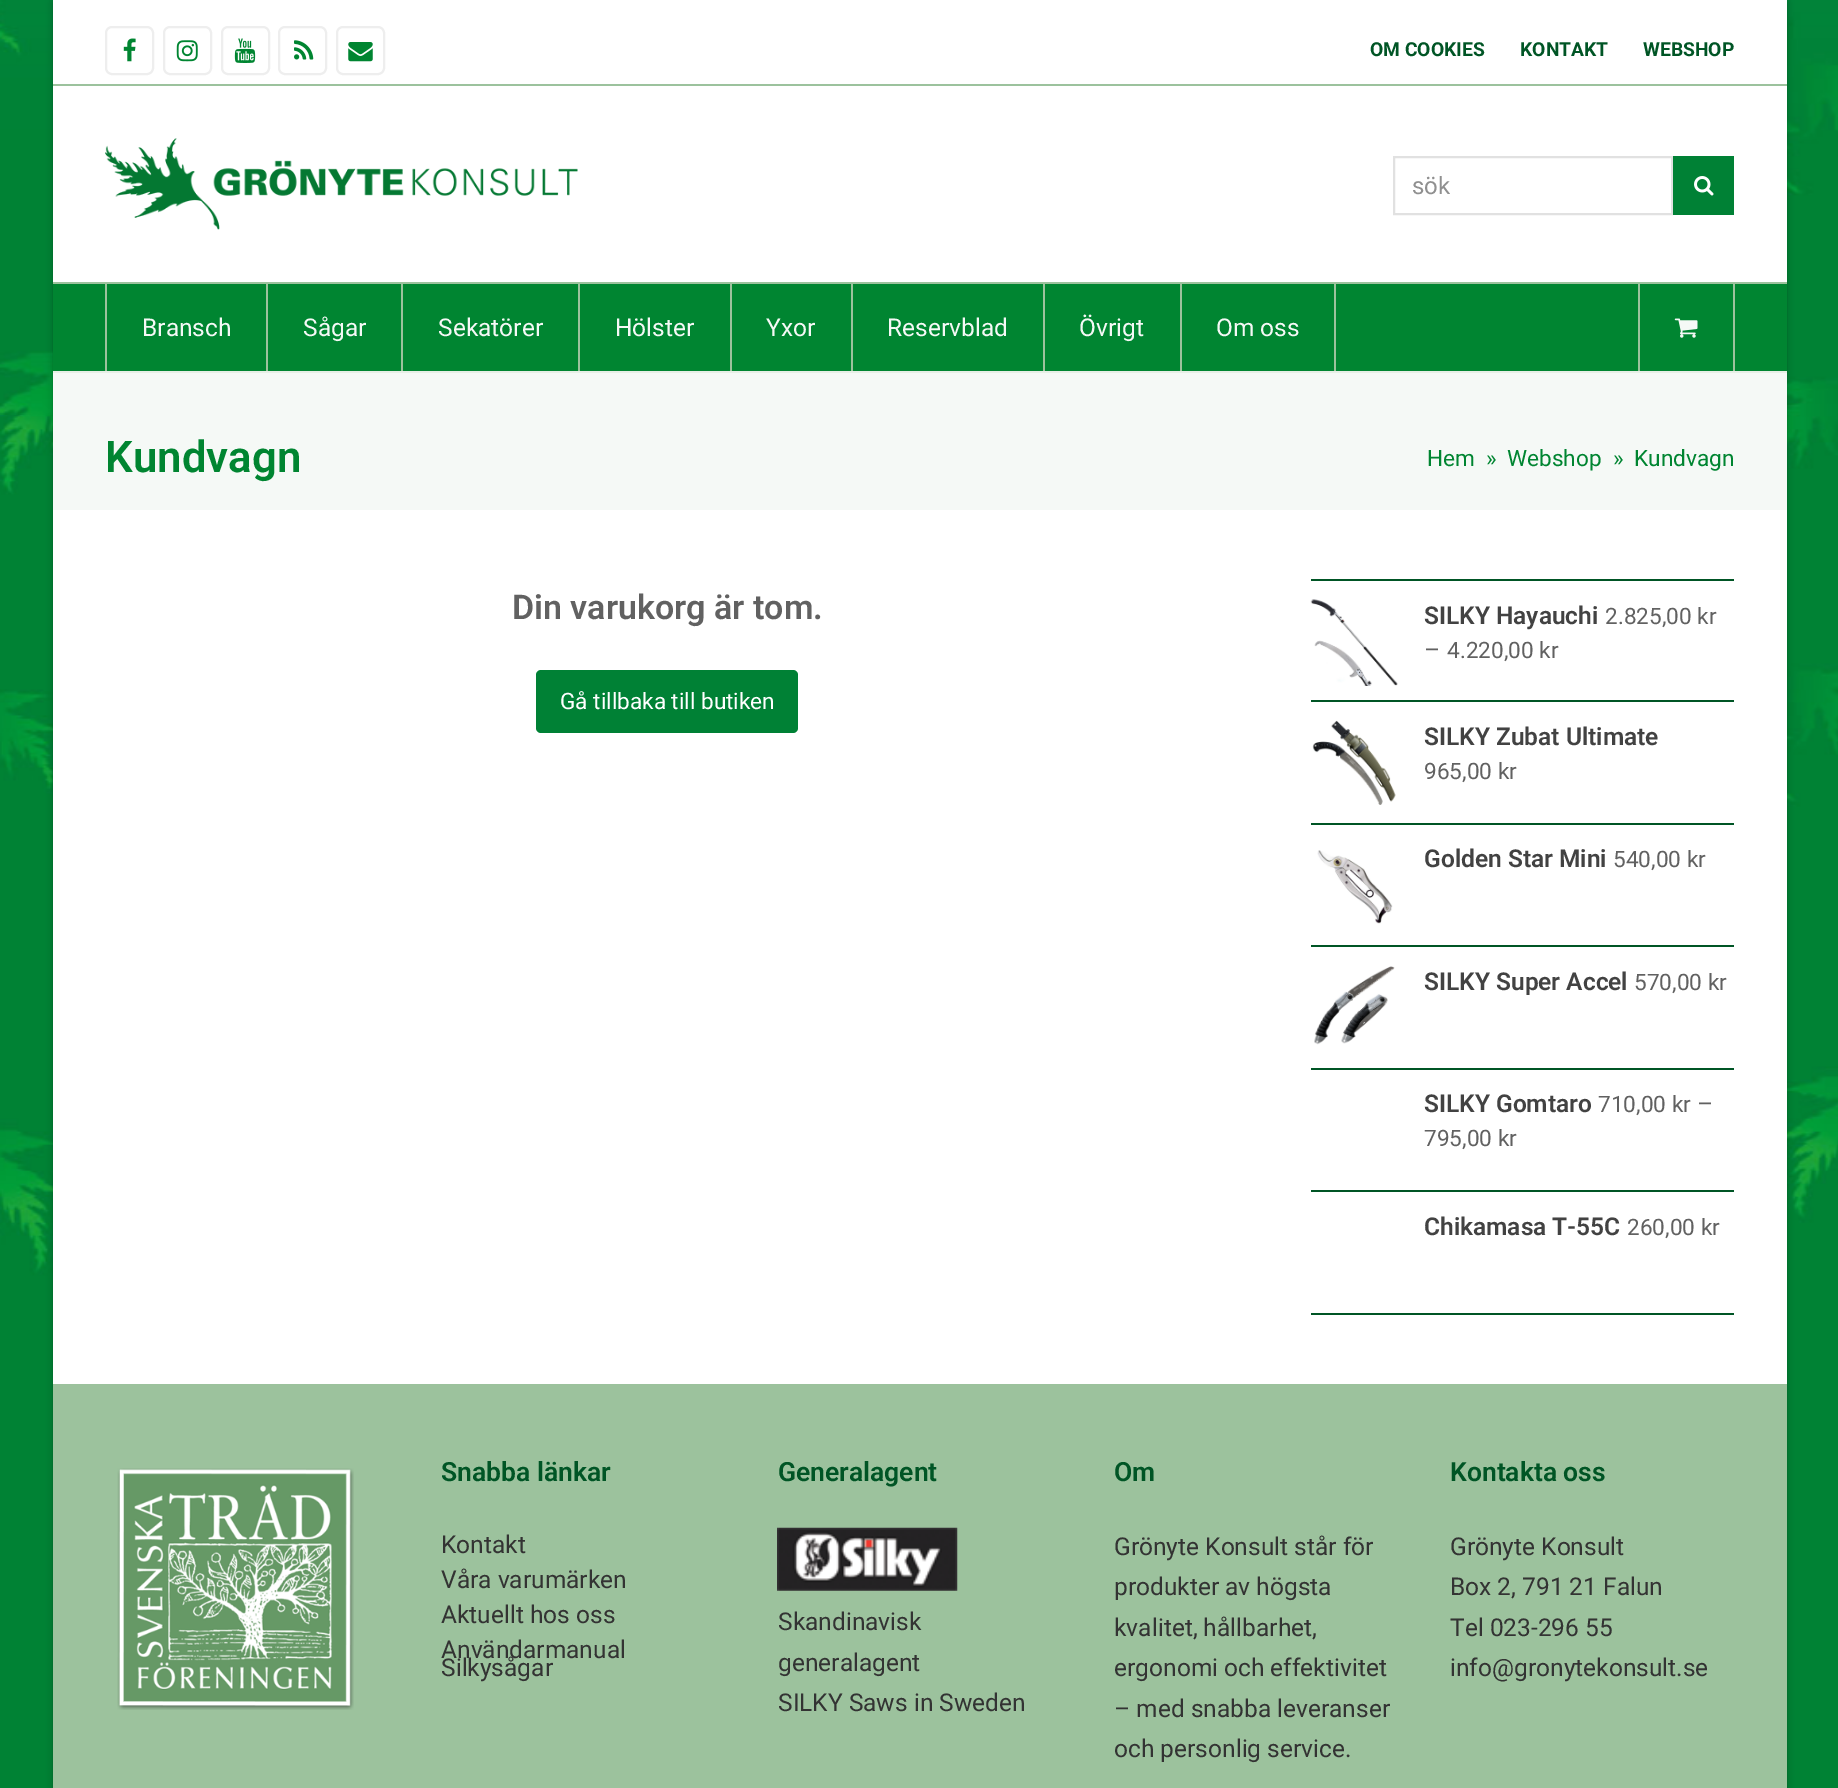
%!PS
<< /PageSize [1838 1788] /PageUsesTransparency true >> setpagedevice
/rgb { dup -16 bitshift 255 div exch dup -8 bitshift 255 and 255 div exch 255 and 255 div setrgbcolor } def
/font { [ exch dup neg 0 0 3 -1 roll 0 0 ] selectfont } def
/text { moveto show } def
/alpha { dup .setfillconstantalpha .setstrokeconstantalpha } def
/roundrect { 5 dict begin { /r /h /w /y /x } { exch def } forall
  x r add y moveto x w add y 2 copy h add r arct x w add y h add x 1 index r arct
  x y h add x y r arct x y 2 copy exch w add exch r arct closepath end } def
/shadow { 12 dict begin { /a /b /q /h /w /y /x } { exch def } forall gsave /was 0 def
  9 -2 -9 { dup b mul 4 div /e exch def 1 sub .425 mul 2.718 exch exp 1 add a .99 .min exch div /now exch def
    1 1 now sub 1 was sub div sub alpha /was now def
    w h .min e 2 mul add 0 gt { x e sub y e sub w e 2 mul add h e 2 mul add
      q e add b .6 mul add w h .min 2 div e add .min 0 .max roundrect fill } if } for grestore end } def
/picture { 5 dict begin { /h /w /y /x /name } { exch def } forall
  gsave x y translate w h scale
  w h 8 [w 0 0 h 0 0] name (r) file false 3 colorimage grestore end } def
0 .pushpdf14devicefilter
0 1788 translate 1 -1 scale
4 setmiterlimit
/s1 { /Roboto-Bold 19.25 font 16#005525 rgb } def
/s2 { /Roboto-Regular 24 font 16#909090 rgb } def
/s3 { /Roboto-Regular 24.5 font 16#F5F9F6 rgb } def
/s4 { /Roboto-SemiBold 43.75 font 16#008531 rgb } def
/s5 { /Roboto-Regular 22.6 font 16#008531 rgb } def
/s6 { /Roboto-SemiBold 34 font 16#616161 rgb } def
/s7 { /Roboto-Regular 22.6 font 16#FFFFFF rgb } def
/s8 { /Roboto-SemiBold 24.5 font 16#424242 rgb } def
/s9 { /Roboto-Regular 22.6 font 16#616161 rgb } def
/s10 { /Roboto-Regular 24.5 font 16#616161 rgb } def
/s11 { /Roboto-SemiBold 26.5 font 16#005525 rgb } def
/s12 { /Roboto-Regular 24.5 font 16#333333 rgb } def
16#FFFFFF rgb
0 0 1838 1788 rectfill
(pic1.raw) 0 0 1838 1788 picture
16#000000 rgb
53 2 1734 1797 0 3.5 0.25 shadow
16#FFFFFF rgb
53 0 1734 1384 rectfill
16#9CC29D rgb
53 84 1734 2 rectfill
16#EEEEEE rgb
2 setlinewidth
106 27 47 47 6 roundrect stroke
(pic2.raw) 123 38 13 24 picture
164 27 47 47 6 roundrect stroke
(pic3.raw) 176 40 22 22 picture
222 27 47 47 6 roundrect stroke
(pic4.raw) 234 38 22 25 picture
279 27 47 47 6 roundrect stroke
(pic5.raw) 294 40 20 20 picture
337 27 47 47 6 roundrect stroke
(pic6.raw) 348 42 25 20 picture
s1
(OM COOKIES) 1370 56 text
(KONTAKT) 1520 56 text
(WEBSHOP) 1643 56 text
(pic7.raw) 105 138 473 92 picture
16#E1E1E1 rgb
1394 157 278 57 rectstroke
s2
(sök) 1412 194 text
16#008135 rgb
1673 156 61 59 rectfill
(pic8.raw) 1694 176 20 20 picture
16#008531 rgb
53 284 1734 87 rectfill
16#9CC29D rgb
53 282 1734 2 rectfill
1733 284 2 87 rectfill
105 284 2 87 rectfill
266 284 2 87 rectfill
s3
(Bransch) 142 336 text
16#9CC29D rgb
401 284 2 87 rectfill
s3
(Sågar) 303 336 text
16#9CC29D rgb
578 284 2 87 rectfill
s3
(Sekatörer) 438 336 text
16#9CC29D rgb
730 284 2 87 rectfill
s3
(Hölster) 615 336 text
16#9CC29D rgb
851 284 2 87 rectfill
s3
(Yxor) 766 336 text
16#9CC29D rgb
1043 284 2 87 rectfill
s3
(Reservblad) 887 336 text
16#9CC29D rgb
1180 284 2 87 rectfill
s3
(Övrigt) 1079 336 text
16#9CC29D rgb
1334 284 2 87 rectfill
s3
(Om oss) 1216 336 text
16#9CC29D rgb
1638 284 2 87 rectfill
(pic9.raw) 1674 318 24 20 picture
16#F5F9F6 rgb
53 373 1734 137 rectfill
16#E7EFE6 rgb
53 371 1734 2 rectfill
s4
(Kundvagn) 105 472 text
s5
(Hem) 1427 466 text
(») 1486 466 text
(Webshop) 1507 466 text
(») 1613 466 text
(Kundvagn) 1634 466 text
s6
(Din varukorg är tom.) 512 619 text
16#008135 rgb
536 670 262 63 5 roundrect fill
s7
(Gå tillbaka till butiken) 560 709 text
16#005525 rgb
1311 579 423 2 rectfill
1311 700 423 2 rectfill
(pic10.raw) 1310 599 88 87 picture
s8
(SILKY Hayauchi) 1424 624 text
s9
(2.825,00 kr) 1605 624 text
s10
(–) 1424 658 text
s9
(4.220,00 kr) 1447 658 text
16#005525 rgb
1311 823 423 2 rectfill
(pic11.raw) 1312 720 84 85 picture
s8
(SILKY Zubat Ultimate) 1424 745 text
s9
(965,00 kr) 1424 779 text
16#005525 rgb
1311 945 423 2 rectfill
(pic12.raw) 1317 850 76 74 picture
s8
(Golden Star Mini) 1424 867 text
s9
(540,00 kr) 1613 867 text
16#005525 rgb
1311 1068 423 2 rectfill
(pic13.raw) 1314 966 81 79 picture
s8
(SILKY Super Accel) 1424 990 text
s9
(570,00 kr) 1634 990 text
16#005525 rgb
1311 1190 423 2 rectfill
s8
(SILKY Gomtaro) 1424 1112 text
s9
(710,00 kr) 1598 1112 text
s10
(–) 1697 1112 text
s9
(795,00 kr) 1424 1146 text
16#005525 rgb
1311 1313 423 2 rectfill
s8
(Chikamasa T-55C) 1424 1235 text
s9
(260,00 kr) 1627 1235 text
16#9CC29D rgb
53 1384 1734 404 rectfill
(pic14.raw) 117 1468 237 242 picture
s11
(Snabba länkar) 441 1481 text
s12
(Kontakt) 441 1553 text
(Våra varumärken) 441 1588 text
(Aktuellt hos oss) 441 1623 text
(Användarmanual) 441 1658 text
(Silkysågar) 441 1676 text
s11
(Generalagent) 778 1481 text
(pic15.raw) 777 1527 181 64 picture
s12
(Skandinavisk) 778 1630 text
(generalagent) 778 1671 text
(SILKY Saws in Sweden) 778 1711 text
s11
(Om) 1114 1481 text
s12
(Grönyte Konsult står för) 1114 1555 text
(produkter av högsta) 1114 1595 text
(kvalitet, hållbarhet,) 1114 1636 text
(ergonomi och effektivitet) 1114 1676 text
(– med snabba leveranser) 1114 1717 text
(och personlig service.) 1114 1757 text
s11
(Kontakta oss) 1450 1481 text
s12
(Grönyte Konsult) 1450 1555 text
(Box 2, 791 21 Falun) 1450 1595 text
(Tel 023-296 55) 1450 1636 text
(info@gronytekonsult.se) 1450 1676 text
.poppdf14devicefilter showpage
